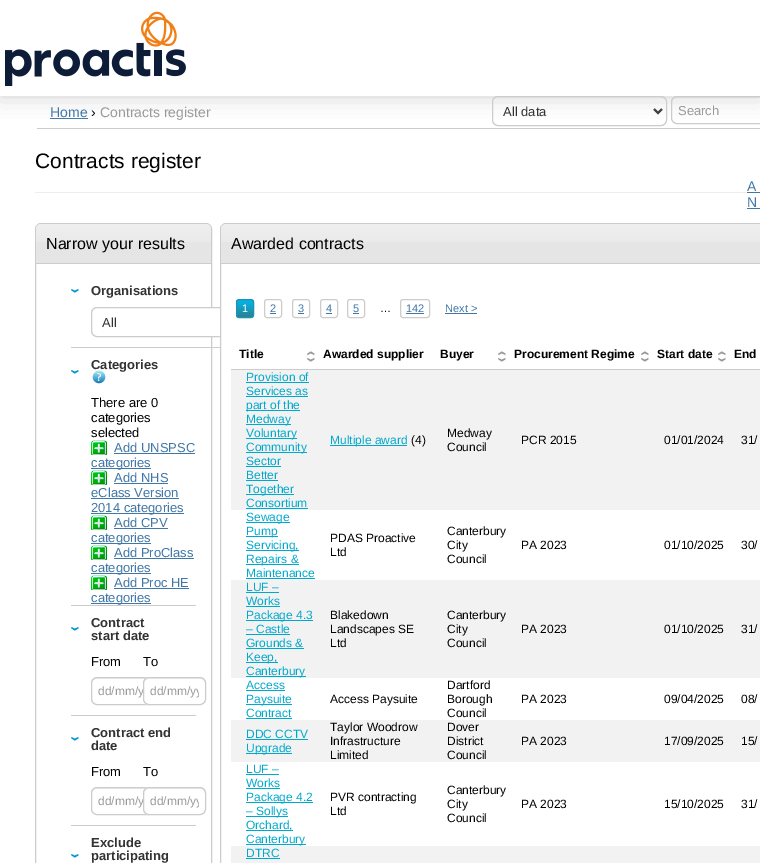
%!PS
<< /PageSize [760 863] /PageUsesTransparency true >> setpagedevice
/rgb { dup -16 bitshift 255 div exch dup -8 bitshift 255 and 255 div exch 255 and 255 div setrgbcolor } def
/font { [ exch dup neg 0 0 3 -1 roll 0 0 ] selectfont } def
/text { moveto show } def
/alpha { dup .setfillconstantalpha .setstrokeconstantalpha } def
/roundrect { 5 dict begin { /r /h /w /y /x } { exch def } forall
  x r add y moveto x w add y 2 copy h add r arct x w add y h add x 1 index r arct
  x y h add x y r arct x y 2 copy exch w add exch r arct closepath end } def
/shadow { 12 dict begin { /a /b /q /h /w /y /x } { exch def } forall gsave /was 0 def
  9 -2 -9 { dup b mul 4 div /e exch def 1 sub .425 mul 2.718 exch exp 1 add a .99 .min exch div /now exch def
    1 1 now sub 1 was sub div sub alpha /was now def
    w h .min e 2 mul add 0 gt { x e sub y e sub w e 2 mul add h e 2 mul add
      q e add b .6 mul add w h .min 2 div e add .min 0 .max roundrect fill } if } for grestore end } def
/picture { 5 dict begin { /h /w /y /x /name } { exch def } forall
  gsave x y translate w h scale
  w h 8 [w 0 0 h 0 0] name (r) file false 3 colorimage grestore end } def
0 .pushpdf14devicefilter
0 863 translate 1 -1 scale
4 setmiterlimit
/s1 { /LiberationSans-Regular 14 font 16#4077A6 rgb } def
/s2 { /LiberationSans-Regular 14 font 16#000000 rgb } def
/s3 { /LiberationSans-Regular 14 font 16#999999 rgb } def
/s4 { /LiberationSans-Regular 13 font 16#333333 rgb } def
/s5 { /LiberationSans-Regular 13 font 16#999999 rgb } def
/s6 { /LiberationSans-Regular 21 font 16#000000 rgb } def
/s7 { /LiberationSans-Regular 16 font 16#000000 rgb } def
/s8 { /LiberationSans-Bold 13 font 16#333333 rgb } def
/s9 { /LiberationSans-Regular 13 font 16#000000 rgb } def
/s10 { /LiberationSans-Regular 13 font 16#4077A6 rgb } def
/s11 { /LiberationSans-Regular 12 font 16#999999 rgb } def
/s12 { /LiberationSans-Regular 11 font 16#FFFFFF rgb } def
/s13 { /LiberationSans-Regular 11 font 16#4077A6 rgb } def
/s14 { /LiberationSans-Regular 11 font 16#000000 rgb } def
/s15 { /LiberationSans-Bold 12 font 16#000000 rgb } def
/s16 { /LiberationSans-Regular 12 font 16#00A9CC rgb } def
/s17 { /LiberationSans-Regular 12 font 16#000000 rgb } def
16#FFFFFF rgb
0 0 760 863 rectfill
16#CCCCCC rgb
37 128 723 1 rectfill
16#4077A6 rgb
50 118 38 1 rectfill
16#CCCCCC rgb
492.5 96.5 174 29 5.5 roundrect stroke
16#333333 rgb
2 setlinewidth
654 109 moveto 658 113 lineto 662 109 lineto stroke
16#ECECEC rgb
677 98 moveto 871 98 lineto 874 98 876 100 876 103 curveto 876 102 lineto 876 99 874 97 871 97 curveto 677 97 lineto 674 97 672 99 672 102 curveto 672 103 lineto 672 100 674 98 677 98 curveto closepath fill
16#CCCCCC rgb
1 setlinewidth
671.5 96.5 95 27 5.5 roundrect stroke
gsave
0 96 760 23 rectclip
16#CDCDCD rgb
0 0 760 96 0 11 1 shadow
grestore
(pic1.raw) 5 11 181 75 picture
s1
(Home) 50 117 text
s2
(›) 91 117 text
s3
(Contracts register) 100 117 text
s4
(All data) 503 116 text
s5
(Search) 678 115 text
16#EEEEEE rgb
35 192 712 1 rectfill
s6
(Contracts register) 35 168 text
16#CCCCCC rgb
35.5 223.5 176 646 5.5 roundrect stroke
16#E5E5E5 rgb
42 224 moveto 205 224 lineto 208.5 224 211 226.5 211 230 curveto 211 264 lineto 36 264 lineto 36 230 lineto 36 226.5 38.5 224 42 224 curveto closepath fill
(pic2.raw) 36 224 175 18 picture
16#CCCCCC rgb
36 263 175 1 rectfill
s7
(Narrow your results) 46 249 text
16#CCCCCC rgb
71 347 149 1 rectfill
(pic3.raw) 71 289 8 4 picture
s8
(Organisations) 91 295 text
16#FFFFFF rgb
91.5 307.5 219 29 5.5 roundrect gsave fill grestore
16#CCCCCC rgb
stroke
s4
(All) 102 327 text
16#CCCCCC rgb
71 605 125 1 rectfill
(pic3.raw) 71 370 8 4 picture
s8
(Categories) 91 369 text
(pic4.raw) 92 370 14 14 picture
s9
(There are 0) 91 407 text
(categories) 91 422 text
(selected) 91 437 text
(pic5.raw) 91 440 16 15 picture
s10
(Add UNSPSC) 114 452 text
114 453 81 1 rectfill
91 468 60 1 rectfill
(categories) 91 467 text
(pic5.raw) 91 470 16 15 picture
(Add NHS) 114 482 text
114 483 54 1 rectfill
(eClass Version) 91 497 text
91 498 88 1 rectfill
91 513 93 1 rectfill
(2014 categories) 91 512 text
(pic5.raw) 91 515 16 15 picture
(Add CPV) 114 527 text
114 528 54 1 rectfill
91 543 60 1 rectfill
(categories) 91 542 text
(pic5.raw) 91 545 16 15 picture
(Add ProClass) 114 557 text
114 558 80 1 rectfill
91 573 60 1 rectfill
(categories) 91 572 text
(pic5.raw) 91 575 16 15 picture
(Add Proc HE) 114 587 text
114 588 75 1 rectfill
91 603 60 1 rectfill
(categories) 91 602 text
16#CCCCCC rgb
71 715 125 1 rectfill
(pic3.raw) 71 627 8 4 picture
s8
(Contract) 91 627 text
(start date) 91 640 text
s9
(From) 91 666 text
16#ECECEC rgb
97 679 moveto 148 679 lineto 151 679 153 681 153 684 curveto 153 676 145 678 140 678 curveto 106 678 lineto 100 678 92 676 92 684 curveto 92 681 94 679 97 679 curveto closepath fill
16#CCCCCC rgb
91.5 677.5 62 27 5.5 roundrect stroke
s11
(dd/mm/y) 98 695 text
s9
(To) 143 666 text
16#FFFFFF rgb
143 677 63 28 6 roundrect fill
16#ECECEC rgb
149 679 moveto 200 679 lineto 203 679 205 681 205 684 curveto 205 676 197 678 192 678 curveto 158 678 lineto 152 678 144 676 144 684 curveto 144 681 146 679 149 679 curveto closepath fill
16#CCCCCC rgb
143.5 677.5 62 27 5.5 roundrect stroke
gsave
150 684 49 14 rectclip
s11
(dd/mm/yy) 150 695 text
grestore
71 825 125 1 rectfill
(pic3.raw) 71 737 8 4 picture
s8
(Contract end) 91 737 text
(date) 91 750 text
s9
(From) 91 776 text
16#ECECEC rgb
97 789 moveto 148 789 lineto 151 789 153 791 153 794 curveto 153 786 145 788 140 788 curveto 106 788 lineto 100 788 92 786 92 794 curveto 92 791 94 789 97 789 curveto closepath fill
16#CCCCCC rgb
91.5 787.5 62 27 5.5 roundrect stroke
s11
(dd/mm/y) 98 805 text
s9
(To) 143 776 text
16#FFFFFF rgb
143 787 63 28 6 roundrect fill
16#ECECEC rgb
149 789 moveto 200 789 lineto 203 789 205 791 205 794 curveto 205 786 197 788 192 788 curveto 158 788 lineto 152 788 144 786 144 794 curveto 144 791 146 789 149 789 curveto closepath fill
16#CCCCCC rgb
143.5 787.5 62 27 5.5 roundrect stroke
gsave
150 794 49 14 rectclip
s11
(dd/mm/yy) 150 805 text
grestore
(pic3.raw) 71 854 8 4 picture
s8
(Exclude) 91 847 text
(participating) 91 860 text
s1
(A) 747 191 text
747 192 13 1 rectfill
(N) 747 207 text
747 208 13 1 rectfill
16#FFFFFF rgb
220.5 223.5 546 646 5.5 roundrect gsave fill grestore
16#CCCCCC rgb
stroke
16#E5E5E5 rgb
227 224 moveto 760 224 lineto 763.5 224 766 226.5 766 230 curveto 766 264 lineto 221 264 lineto 221 230 lineto 221 226.5 223.5 224 227 224 curveto closepath fill
(pic6.raw) 221 224 539 18 picture
16#CCCCCC rgb
221 263 539 1 rectfill
s7
(Awarded contracts) 231 249 text
(pic7.raw) 236 300 18 18 picture
16#1B92B2 rgb
236.5 299.5 17 18 2.5 roundrect stroke
s12
(1) 242 312 text
16#CCCCCC rgb
264.5 299.5 17 18 2.5 roundrect stroke
s13
(2) 270 312 text
270 313 6 1 rectfill
16#CCCCCC rgb
292.5 299.5 17 18 2.5 roundrect stroke
s13
(3) 298 312 text
298 313 6 1 rectfill
16#CCCCCC rgb
320.5 299.5 17 18 2.5 roundrect stroke
s13
(4) 326 312 text
326 313 6 1 rectfill
16#CCCCCC rgb
347.5 299.5 17 18 2.5 roundrect stroke
s13
(5) 353 312 text
353 313 6 1 rectfill
s14
(…) 380 312 text
16#CCCCCC rgb
400.5 299.5 29 18 2.5 roundrect stroke
s13
(142) 406 312 text
406 313 18 1 rectfill
(Next >) 445 312 text
445 313 32 1 rectfill
(pic8.raw) 307 351 8 11 picture
s15
(Title) 239 358 text
(Awarded supplier) 323 358 text
(pic8.raw) 498 351 8 11 picture
(Buyer) 440 358 text
(pic8.raw) 641 351 8 11 picture
(Procurement Regime) 514 358 text
(pic8.raw) 718 351 8 11 picture
(Start date) 657 358 text
16#CCCCCC rgb
231 369 529 1 rectfill
s15
(End) 734 358 text
16#F2F2F2 rgb
231 370 529 140 rectfill
s16
(Provision of) 246 381 text
246 382 63 1 rectfill
(Services as) 246 395 text
246 396 62 1 rectfill
246 410 54 1 rectfill
(part of the) 246 409 text
246 424 45 1 rectfill
(Medway) 246 423 text
246 438 51 1 rectfill
(Voluntary) 246 437 text
246 452 61 1 rectfill
(Community) 246 451 text
(Sector) 246 465 text
246 466 35 1 rectfill
(Better) 246 479 text
246 480 32 1 rectfill
246 494 48 1 rectfill
(Together) 246 493 text
(Consortium) 246 507 text
246 508 62 1 rectfill
330 445 77 1 rectfill
(Multiple award) 330 444 text
s17
(\(4\)) 411 444 text
(Medway) 447 437 text
(Council) 447 451 text
(PCR 2015) 521 444 text
(01/01/2024) 664 444 text
(31/) 741 444 text
16#00A9CC rgb
246 522 44 1 rectfill
(Sewage) 246 521 text
246 536 32 1 rectfill
(Pump) 246 535 text
246 550 53 1 rectfill
(Servicing,) 246 549 text
246 564 53 1 rectfill
(Repairs &) 246 563 text
(Maintenance) 246 577 text
246 578 69 1 rectfill
s17
(PDAS Proactive) 330 542 text
(Ltd) 330 556 text
(Canterbury) 447 535 text
(City) 447 549 text
(Council) 447 563 text
(PA 2023) 521 549 text
(01/10/2025) 664 549 text
(30/) 741 549 text
16#F2F2F2 rgb
231 580 529 98 rectfill
s16
(LUF –) 246 591 text
246 592 33 1 rectfill
(Works) 246 605 text
246 606 34 1 rectfill
246 620 67 1 rectfill
(Package 4.3) 246 619 text
(– Castle) 246 633 text
246 634 44 1 rectfill
(Grounds &) 246 647 text
246 648 58 1 rectfill
246 662 32 1 rectfill
(Keep,) 246 661 text
246 676 60 1 rectfill
(Canterbury) 246 675 text
s17
(Blakedown) 330 619 text
(Landscapes SE) 330 633 text
(Ltd) 330 647 text
(Canterbury) 447 619 text
(City) 447 633 text
(Council) 447 647 text
(PA 2023) 521 633 text
(01/10/2025) 664 633 text
(31/) 741 633 text
s16
(Access) 246 689 text
246 690 39 1 rectfill
246 704 46 1 rectfill
(Paysuite) 246 703 text
(Contract) 246 717 text
246 718 46 1 rectfill
s17
(Access Paysuite) 330 703 text
(Dartford) 447 689 text
(Borough) 447 703 text
(Council) 447 717 text
(PA 2023) 521 703 text
(09/04/2025) 664 703 text
(08/) 741 703 text
16#F2F2F2 rgb
231 720 529 42 rectfill
s16
(DDC CCTV) 246 738 text
246 739 62 1 rectfill
246 753 46 1 rectfill
(Upgrade) 246 752 text
s17
(Taylor Woodrow) 330 731 text
(Infrastructure) 330 745 text
(Limited) 330 759 text
(Dover) 447 731 text
(District) 447 745 text
(Council) 447 759 text
(PA 2023) 521 745 text
(17/09/2025) 664 745 text
(15/) 741 745 text
s16
(LUF –) 246 773 text
246 774 33 1 rectfill
(Works) 246 787 text
246 788 34 1 rectfill
246 802 67 1 rectfill
(Package 4.2) 246 801 text
246 816 42 1 rectfill
(– Sollys) 246 815 text
246 830 47 1 rectfill
(Orchard,) 246 829 text
246 844 60 1 rectfill
(Canterbury) 246 843 text
s17
(PVR contracting) 330 801 text
(Ltd) 330 815 text
(Canterbury) 447 794 text
(City) 447 808 text
(Council) 447 822 text
(PA 2023) 521 808 text
(15/10/2025) 664 808 text
(31/) 741 808 text
16#F2F2F2 rgb
231 846 529 17 rectfill
s16
(DTRC) 246 857 text
246 858 34 1 rectfill
.poppdf14devicefilter showpage
